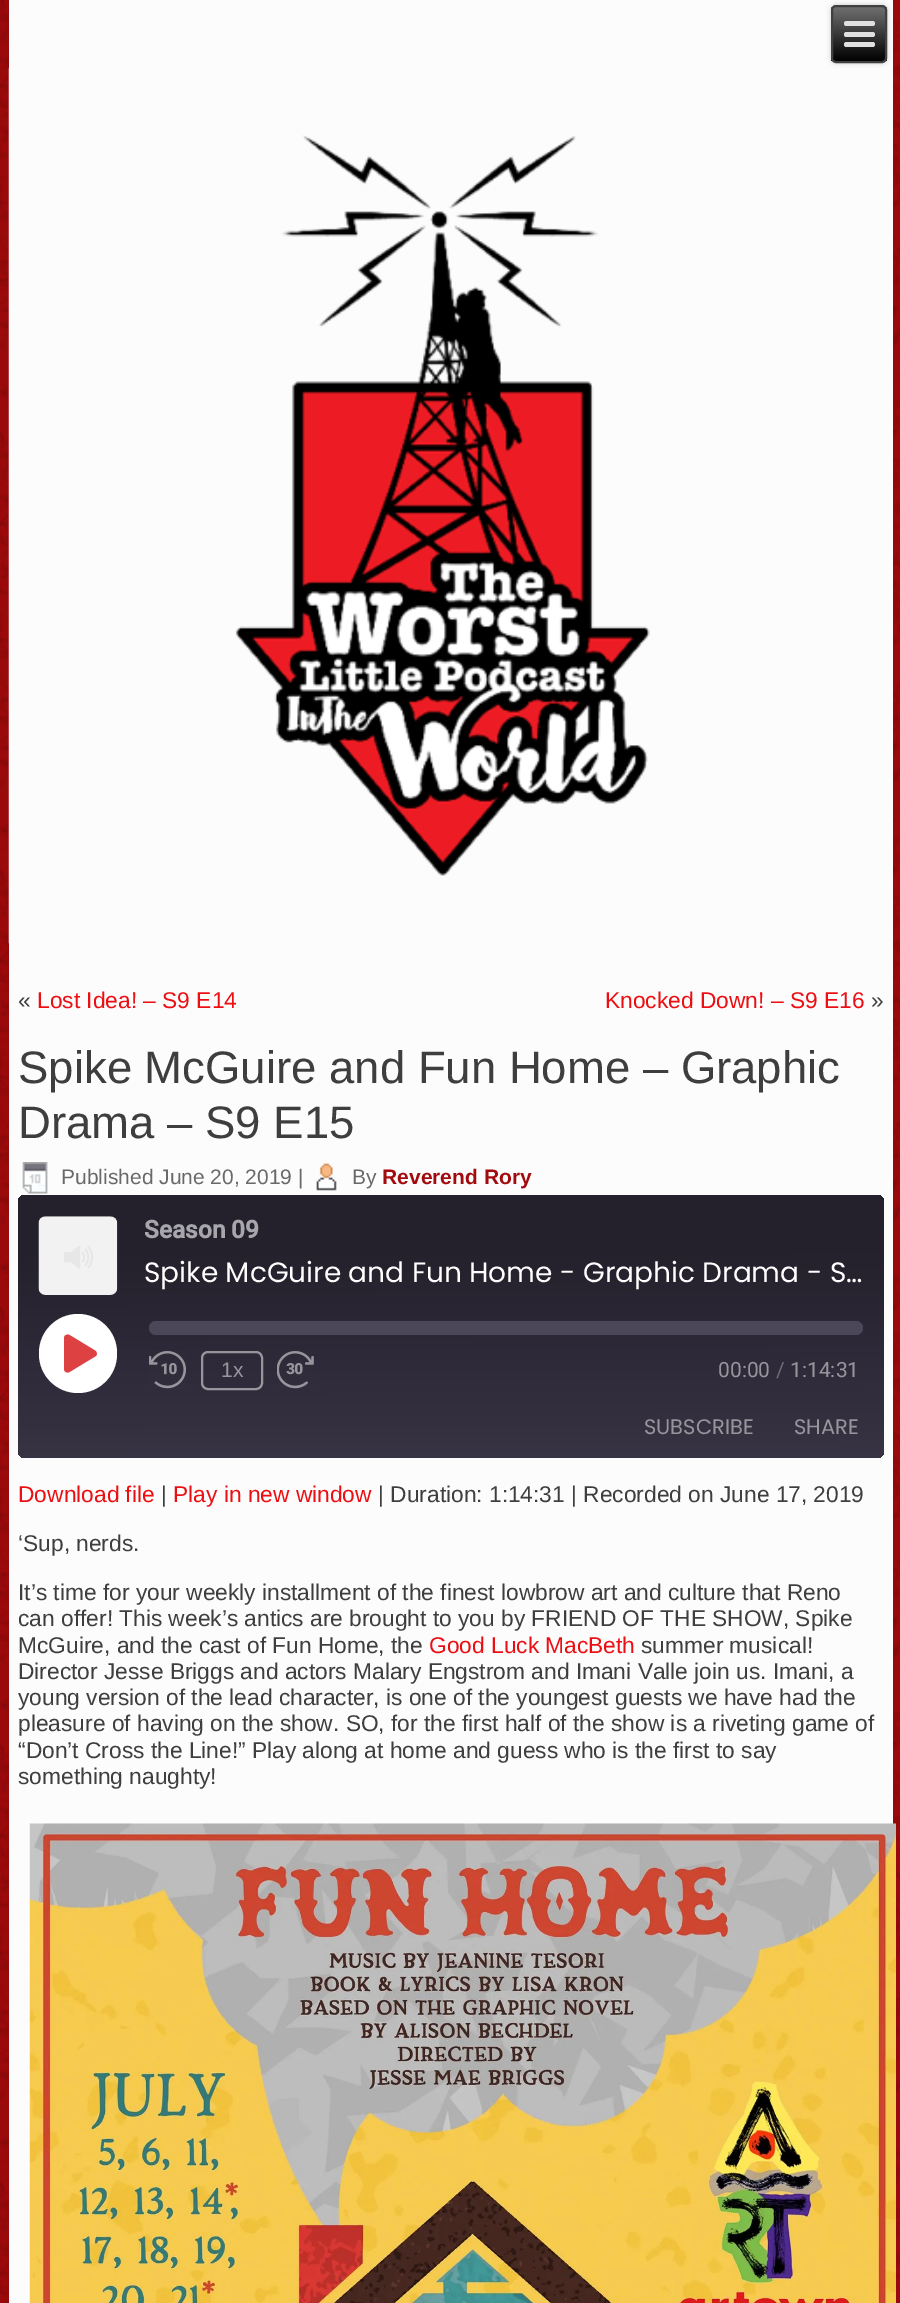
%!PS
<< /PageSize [900 2303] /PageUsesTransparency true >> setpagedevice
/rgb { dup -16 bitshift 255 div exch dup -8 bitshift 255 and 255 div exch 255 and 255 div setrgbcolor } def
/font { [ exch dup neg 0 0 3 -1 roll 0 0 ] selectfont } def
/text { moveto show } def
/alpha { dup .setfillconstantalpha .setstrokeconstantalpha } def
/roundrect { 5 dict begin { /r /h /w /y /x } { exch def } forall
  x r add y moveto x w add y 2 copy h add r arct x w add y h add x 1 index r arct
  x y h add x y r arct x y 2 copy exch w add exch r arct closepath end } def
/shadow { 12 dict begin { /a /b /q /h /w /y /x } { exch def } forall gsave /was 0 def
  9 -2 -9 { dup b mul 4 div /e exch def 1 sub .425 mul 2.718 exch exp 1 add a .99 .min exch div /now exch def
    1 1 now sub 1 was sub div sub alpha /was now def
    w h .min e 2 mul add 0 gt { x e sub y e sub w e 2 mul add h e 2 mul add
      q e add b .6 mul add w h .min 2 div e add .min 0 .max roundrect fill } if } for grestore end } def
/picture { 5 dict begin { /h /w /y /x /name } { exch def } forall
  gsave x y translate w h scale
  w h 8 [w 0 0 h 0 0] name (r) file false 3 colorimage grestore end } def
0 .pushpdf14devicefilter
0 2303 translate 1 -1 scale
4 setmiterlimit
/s1 { /LiberationSans-Regular 22.75 font 16#3D3E3D rgb } def
/s2 { /LiberationSans-Regular 22.75 font 16#EB0F13 rgb } def
/s3 { /LiberationSans-Regular 45.5 font 16#3D3E3D rgb } def
/s4 { /LiberationSans-Regular 21 font 16#686A68 rgb } def
/s5 { /LiberationSans-Bold 21 font 16#A30A0D rgb } def
/s6 { /Roboto-Bold 24.5 font 16#A7A6AB rgb } def
/s7 { /Poppins-Regular 28 font 16#FFFFFF rgb } def
/s8 { /LiberationSans-Regular 21 font 16#97959C rgb } def
/s9 { /Roboto-Regular 21 font 16#97959C rgb } def
/s10 { /Roboto-Regular 21 font 16#6E6B75 rgb } def
/s11 { /Poppins-Regular 21 font 16#97959C rgb } def
16#90090B rgb
0 0 900 2303 rectfill
(pic1.raw) 0 0 900 2303 picture
16#FCFCFC rgb
9 0 884 2303 rectfill
16#000000 rgb
831 5 56 58 5 2.5 0.2 shadow
gsave
831 5 56 58 5 roundrect clip newpath
gsave 831 7 moveto 887 7 lineto 887 61 lineto 831 61 lineto closepath clip newpath
<< /ShadingType 2 /ColorSpace /DeviceRGB /Coords [859 7 859 61] /Extend [true true] /Function << /FunctionType 2 /Domain [0 1] /C0 [0.439 0.439 0.439] /C1 [0 0 0] /N 1 >> >> shfill grestore
grestore
16#404040 rgb
2 setlinewidth
832 6 54 56 4 roundrect stroke
16#E0E0E0 rgb
844 21 31 5 2.5 roundrect fill
844 32 31 5 2.5 roundrect fill
844 42 31 5 2.5 roundrect fill
(pic2.raw) 8 68 1 876 picture
(pic3.raw) 235 135 415 741 picture
s1
(«) 18 1008 text
s2
(Lost Idea! – S9 E14) 37 1008 text
(Knocked Down! – S9 E16) 605 1008 text
s1
(») 871 1008 text
s3
(Spike McGuire and Fun Home – Graphic) 18 1083 text
(Drama – S9 E15) 18 1138 text
(pic4.raw) 22 1162 26 32 picture
s4
(Published June 20, 2019 |) 61 1184 text
(pic5.raw) 316 1163 21 28 picture
(By) 352 1184 text
s5
(Reverend Rory) 382 1184 text
gsave 18 1195 866 263 7 roundrect clip newpath
<< /ShadingType 2 /ColorSpace /DeviceRGB /Coords [451 1460 450 1193] /Extend [true true] /Function << /FunctionType 3 /Domain [0 1] /Functions [<< /FunctionType 2 /Domain [0 1] /C0 [0.22 0.2 0.267] /C1 [0.22 0.2 0.267] /N 1 >> << /FunctionType 2 /Domain [0 1] /C0 [0.22 0.2 0.267] /C1 [0.141 0.129 0.173] /N 1 >> << /FunctionType 2 /Domain [0 1] /C0 [0.141 0.129 0.173] /C1 [0.141 0.129 0.173] /N 1 >>] /Bounds [0.01 0.78] /Encode [0 1 0 1 0 1] >> >> shfill grestore
(pic6.raw) 38 1216 80 79 picture
s6
(Season 09) 144 1238 text
s7
(Spike McGuire and Fun Home - Graphic Drama - S…) 144 1282 text
39 1314 78 79 39 roundrect fill
16#DD4142 rgb
95 1350.5 moveto 69.5 1335 lineto 67.5 1334 64 1335 64 1338 curveto 64 1369 lineto 64 1371.5 67 1373.5 69.5 1372 curveto 95 1356.5 lineto 97.5 1355.5 97.5 1352 95 1350.5 curveto closepath fill
16#4C4659 rgb
149 1321 714 14 7 roundrect fill
(pic7.raw) 149 1351 37 38 picture
0.5 alpha
16#FFFFFF rgb
202 1352 60 37 6 roundrect stroke
1 alpha
s8
(1x) 221 1377 text
(pic8.raw) 277 1351 37 38 picture
s9
(00:00) 718 1377 text
s10
(/) 776 1377 text
s9
(1:14:31) 790 1377 text
s11
(SUBSCRIBE) 644 1434 text
(SHARE) 794 1434 text
s2
(Download file) 18 1502 text
s1
(|) 161 1502 text
s2
(Play in new window) 173 1502 text
s1
(| Duration: 1:14:31 | Recorded on June 17, 2019) 378 1502 text
(‘Sup, nerds.) 18 1551 text
(It’s time for your weekly installment of the finest lowbrow art and culture that Reno) 18 1600 text
(can offer! This week’s antics are brought to you by FRIEND OF THE SHOW, Spike) 18 1626 text
(McGuire, and the cast of Fun Home, the) 18 1653 text
s2
(Good Luck MacBeth) 429 1653 text
s1
(summer musical!) 641 1653 text
(Director Jesse Briggs and actors Malary Engstrom and Imani Valle join us. Imani, a) 18 1679 text
(young version of the lead character, is one of the youngest guests we have had the) 18 1705 text
(pleasure of having on the show. SO, for the first half of the show is a riveting game of) 18 1731 text
(“Don’t Cross the Line!” Play along at home and guess who is the first to say) 18 1758 text
(something naughty!) 18 1784 text
(pic9.raw) 29 1823 867 480 picture
.poppdf14devicefilter showpage
